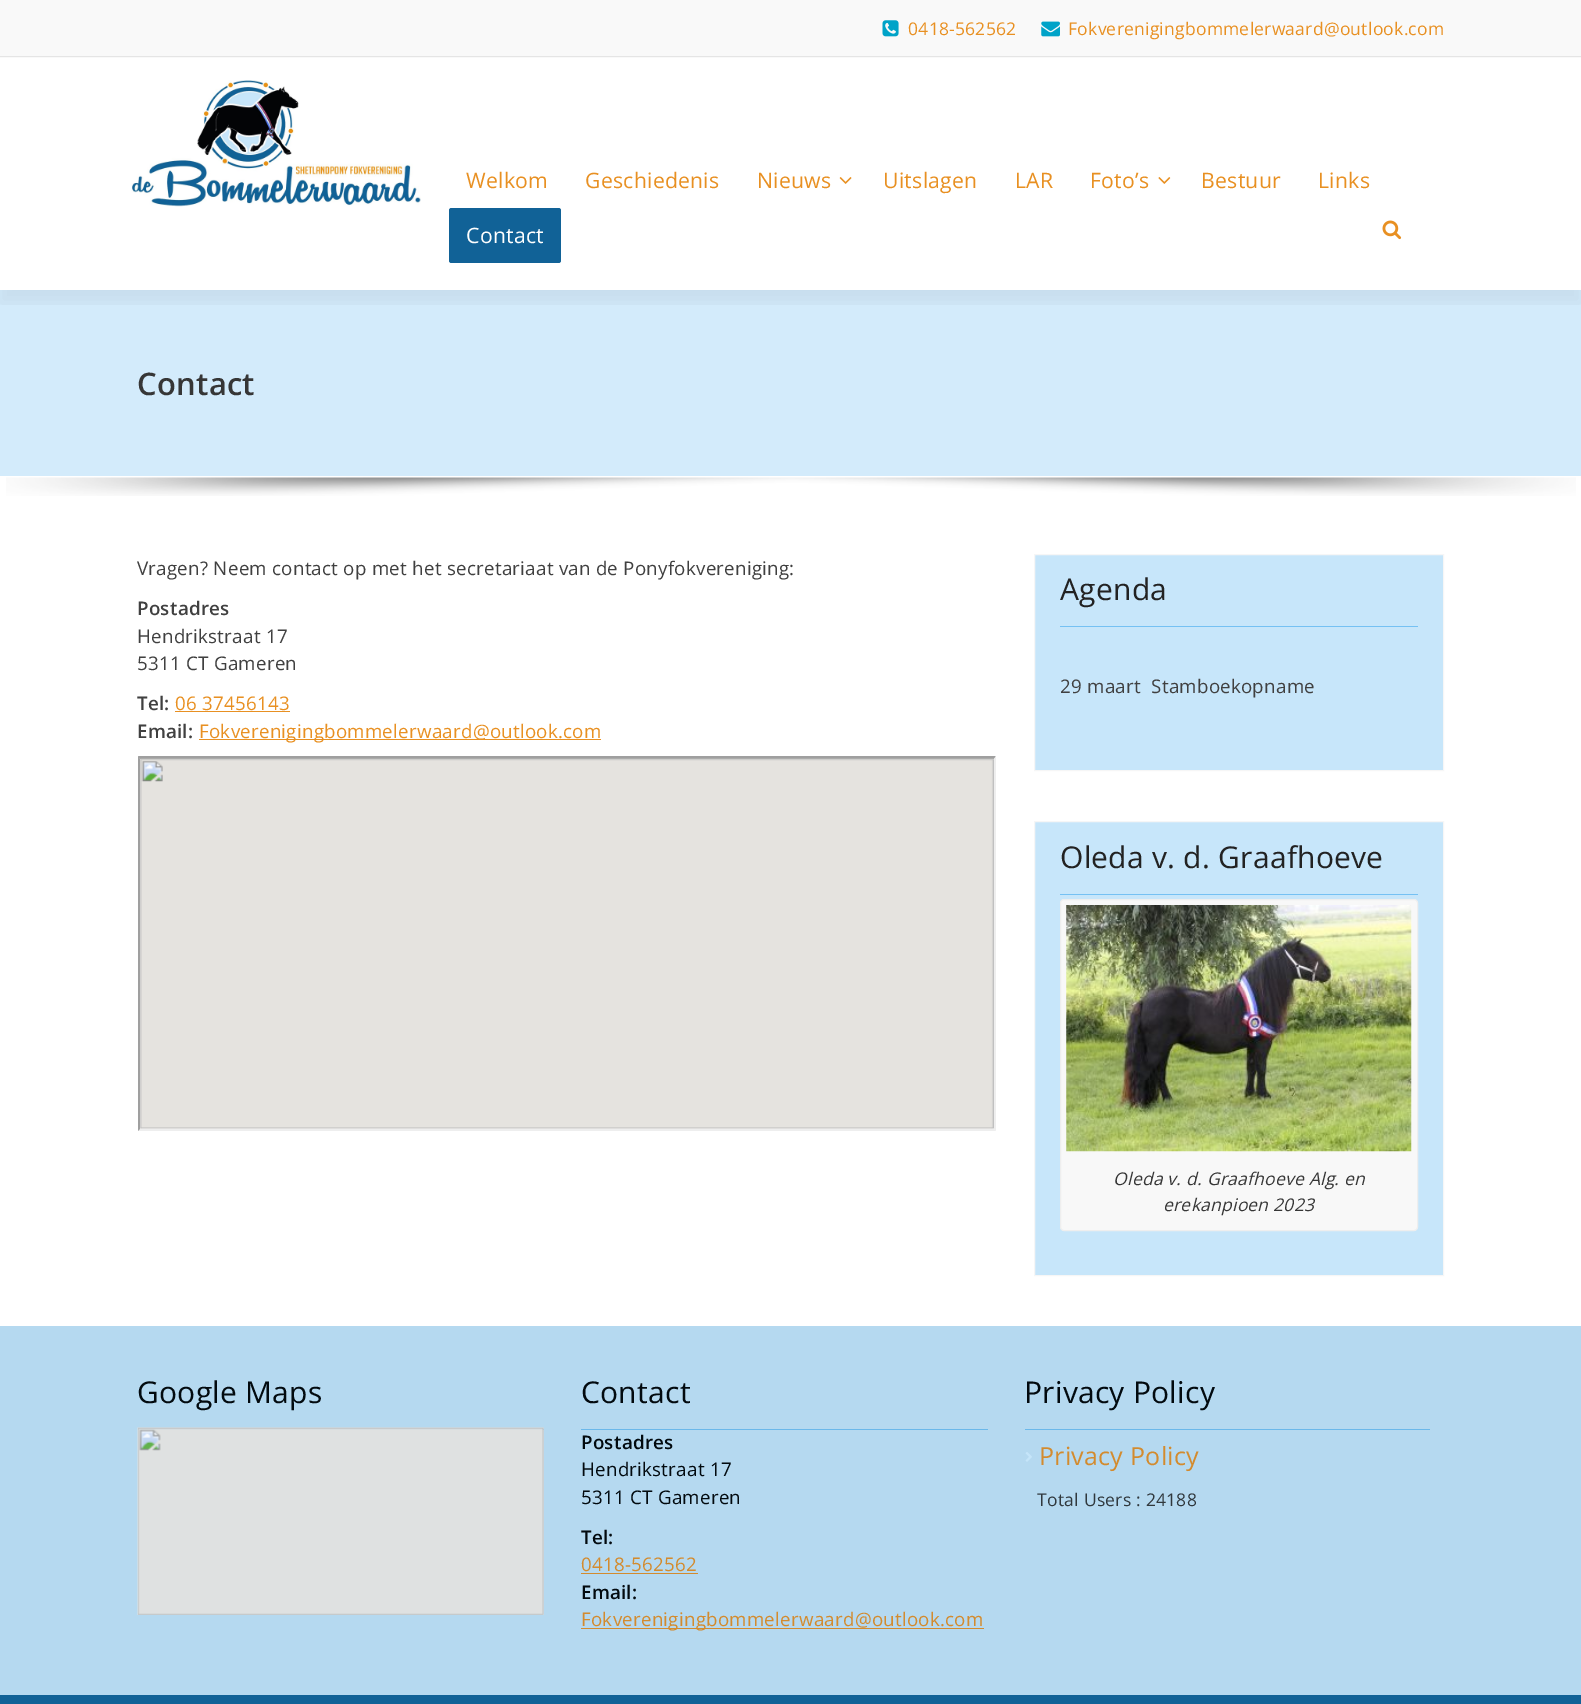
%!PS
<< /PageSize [1581 1704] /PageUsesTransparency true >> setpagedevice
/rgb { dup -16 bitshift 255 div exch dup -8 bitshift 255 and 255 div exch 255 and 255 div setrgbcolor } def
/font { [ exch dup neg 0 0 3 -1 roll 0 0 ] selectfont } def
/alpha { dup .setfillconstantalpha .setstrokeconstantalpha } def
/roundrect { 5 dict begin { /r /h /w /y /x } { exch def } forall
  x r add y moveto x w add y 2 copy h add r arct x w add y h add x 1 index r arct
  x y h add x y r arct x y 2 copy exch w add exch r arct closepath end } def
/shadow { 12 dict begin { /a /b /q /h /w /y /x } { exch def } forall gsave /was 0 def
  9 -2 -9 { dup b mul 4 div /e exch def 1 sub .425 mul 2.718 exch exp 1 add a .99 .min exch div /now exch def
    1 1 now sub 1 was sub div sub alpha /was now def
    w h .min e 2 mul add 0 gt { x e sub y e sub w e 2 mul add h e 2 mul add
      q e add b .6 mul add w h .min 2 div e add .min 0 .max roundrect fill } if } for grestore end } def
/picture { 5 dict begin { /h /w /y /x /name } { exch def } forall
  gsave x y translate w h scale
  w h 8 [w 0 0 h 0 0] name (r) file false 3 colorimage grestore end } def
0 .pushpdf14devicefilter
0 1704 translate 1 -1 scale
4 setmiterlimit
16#FFFFFF rgb
0 0 1581 1704 rectfill
16#D3EBFB rgb
0 290 1581 186 rectfill
gsave
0 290 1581 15 rectclip
16#000000 rgb
0 70 1581 233 0 9.5 0.05 shadow
grestore
16#F9F9F9 rgb
0 0 1581 58 rectfill
16#E5E5E5 rgb
0 56 1581 1 rectfill
(pic1.raw) 882 20 17 17 picture
/OpenSans-Regular 17.5 font
16#E89022 rgb
908 35 moveto 0.25 0 (0418-562562) ashow
(pic2.raw) 1041 21 19 16 picture
1068 35 moveto 0.25 0 (Fokverenigingbommelerwaard@outlook.com) ashow
(pic3.raw) 131 80 290 127 picture
/OpenSans-Regular 21.25 font
466 188 moveto 0.25 0 (Welkom) ashow
585 188 moveto 0.25 0 (Geschiedenis) ashow
757 188 moveto 0.25 0 (Nieuws) ashow
(pic4.raw) 839 177 13 7 picture
883 188 moveto 0.25 0 (Uitslagen) ashow
1015 188 moveto 0.25 0 (LAR) ashow
1090 188 moveto 0.25 0 (Foto’s) ashow
(pic5.raw) 1158 177 13 7 picture
1201 188 moveto 0.25 0 (Bestuur) ashow
1318 188 moveto 0.25 0 (Links) ashow
16#116297 rgb
449 208 112 55 2.5 roundrect fill
16#FFFFFF rgb
466 243 moveto 0.25 0 (Contact) ashow
(pic6.raw) 1382 220 20 20 picture
/OpenSans-SemiBold 31 font
16#363636 rgb
137 395 moveto 0.25 0 (Contact) ashow
(pic7.raw) 6 477 1570 19 picture
16#116297 rgb
0 1695 1581 9 rectfill
/OpenSans-Regular 18.75 font
16#404040 rgb
137 575 moveto 0.25 0 (Vragen? Neem contact op met het secretariaat van de Ponyfokvereniging:) ashow
/OpenSans-SemiBold 18.75 font
137 615 moveto 0.25 0 (Postadres) ashow
/OpenSans-Regular 18.75 font
137 643 moveto 0.25 0 (Hendrikstraat 17) ashow
137 670 moveto 0.25 0 (5311 CT Gameren) ashow
/OpenSans-SemiBold 18.75 font
137 710 moveto 0.25 0 (Tel:) ashow
/OpenSans-Regular 18.75 font
16#E89022 rgb
175 710 moveto 0.25 0 (06 37456143) ashow
175 711 115 1 rectfill
/OpenSans-SemiBold 18.75 font
16#404040 rgb
137 738 moveto 0.25 0 (Email:) ashow
16#E89022 rgb
199 739 402 1 rectfill
/OpenSans-Regular 18.75 font
199 738 moveto 0.25 0 (Fokverenigingbommelerwaard@outlook.com) ashow
16#9F9F9F rgb
138 756 moveto 996 756 lineto 994 759 lineto 140 759 lineto closepath fill
16#EEEEEE rgb
996 756 moveto 996 1131 lineto 994 1129 lineto 994 759 lineto closepath fill
996 1131 moveto 138 1131 lineto 140 1129 lineto 994 1129 lineto closepath fill
16#9F9F9F rgb
138 1131 moveto 138 756 lineto 140 759 lineto 140 1129 lineto closepath fill
(pic8.raw) 140 758 854 371 picture
16#C7E6FA rgb
1034.5 554.5 moveto 1443.5 554.5 lineto 1443.5 770.5 lineto 1034.5 770.5 lineto closepath gsave fill grestore
16#F6F6F6 rgb
stroke
16#75C1F3 rgb
1060 626 358 1 rectfill
/OpenSans-Regular 30 font
16#222222 rgb
1060 600 moveto 0.25 0 (Agenda) ashow
/OpenSans-Regular 18.75 font
16#404040 rgb
1060 693 moveto 0.25 0 (29 maart  Stamboekopname) ashow
16#C7E6FA rgb
1034.5 821.5 moveto 1443.5 821.5 lineto 1443.5 1275.5 lineto 1034.5 1275.5 lineto closepath gsave fill grestore
16#F6F6F6 rgb
stroke
16#75C1F3 rgb
1060 894 358 1 rectfill
/OpenSans-Regular 30 font
16#222222 rgb
1060 868 moveto 0.25 0 (Oleda v. d. Graafhoeve) ashow
16#F8F8F8 rgb
1060.5 899.5 357 331 3.5 roundrect gsave fill grestore
16#EEEEEE rgb
stroke
(pic9.raw) 1066 905 346 247 picture
/OpenSans-Italic 17.5 font
16#363636 rgb
1113 1185 moveto 0.25 0 (Oleda v. d. Graafhoeve Alg. en) ashow
1163 1211 moveto 0.25 0 (erekanpioen 2023) ashow
16#B5D9F0 rgb
0 1326 1581 369 rectfill
/OpenSans-Regular 30 font
16#020A0F rgb
137 1403 moveto 0.25 0 (Google Maps) ashow
(pic10.raw) 137 1427 407 188 picture
16#6BB8EA rgb
581 1429 407 1 rectfill
16#020A0F rgb
581 1403 moveto 0.25 0 (Contact) ashow
/OpenSans-SemiBold 18.75 font
581 1449 moveto 0.25 0 (Postadres) ashow
/OpenSans-Regular 18.75 font
581 1476 moveto 0.25 0 (Hendrikstraat 17) ashow
581 1504 moveto 0.25 0 (5311 CT Gameren) ashow
/OpenSans-SemiBold 18.75 font
581 1544 moveto 0.25 0 (Tel:) ashow
/OpenSans-Regular 18.75 font
16#D38B2E rgb
581 1571 moveto 0.25 0 (0418-562562) ashow
581 1573 117 1 rectfill
/OpenSans-SemiBold 18.75 font
16#020A0F rgb
581 1599 moveto 0.25 0 (Email:) ashow
16#D38B2E rgb
581 1628 403 1 rectfill
/OpenSans-Regular 18.75 font
581 1626 moveto 0.25 0 (Fokverenigingbommelerwaard@outlook.com) ashow
16#6BB8EA rgb
1025 1429 405 1 rectfill
/OpenSans-Regular 30 font
16#020A0F rgb
1024 1403 moveto 0.25 0 (Privacy Policy) ashow
(pic11.raw) 1025 1452 7 10 picture
/OpenSans-Regular 25 font
16#D38B2E rgb
1039 1465 moveto 0.25 0 (Privacy Policy) ashow
/OpenSans-Regular 17.5 font
16#30383D rgb
1037 1506 moveto 0.25 0 (Total Users : 24188) ashow
.poppdf14devicefilter showpage
